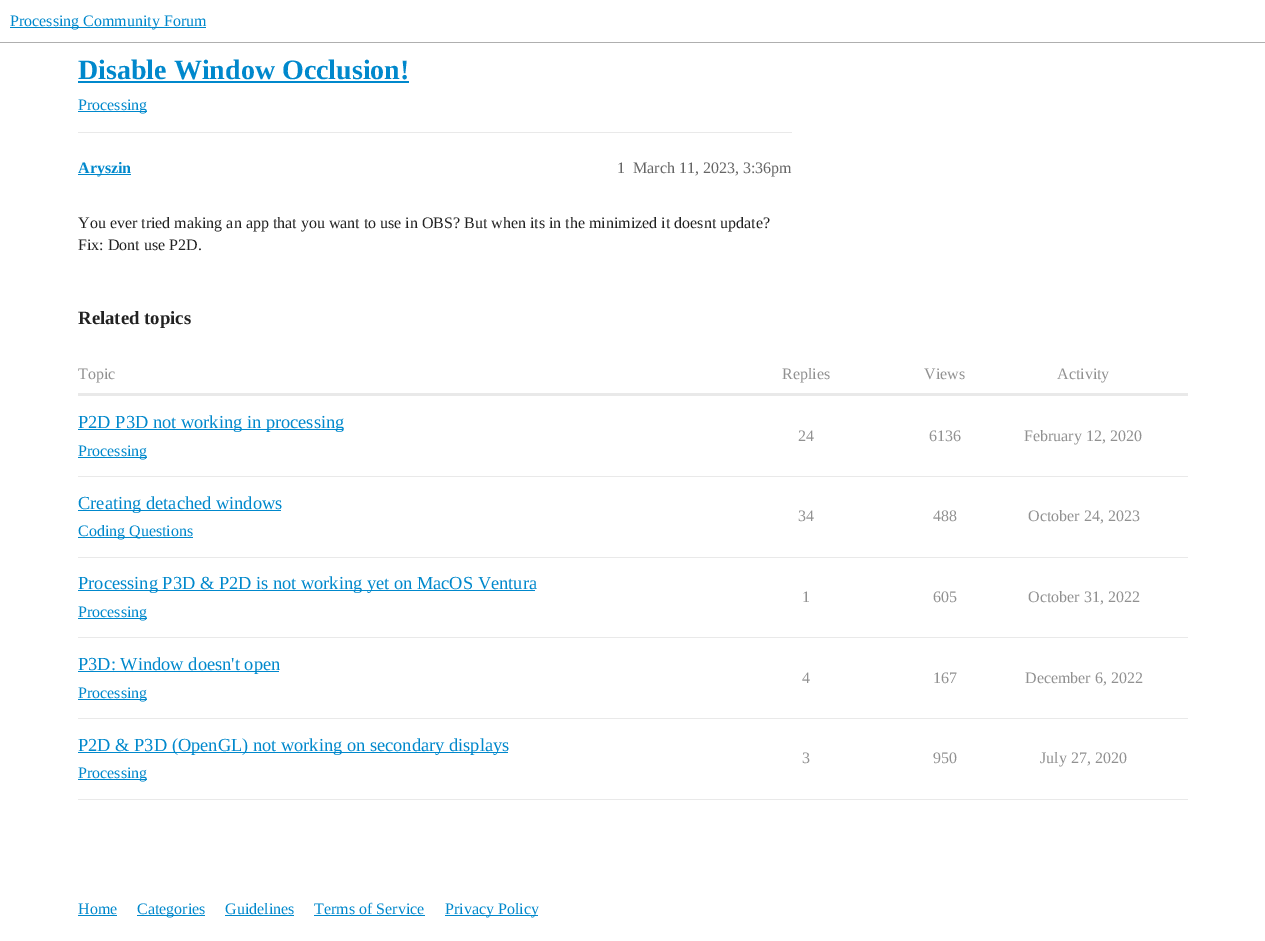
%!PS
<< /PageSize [1265 941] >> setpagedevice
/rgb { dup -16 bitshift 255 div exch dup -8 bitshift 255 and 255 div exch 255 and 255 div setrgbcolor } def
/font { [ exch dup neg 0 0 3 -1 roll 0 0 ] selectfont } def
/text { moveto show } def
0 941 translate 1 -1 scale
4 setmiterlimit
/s1 { /LiberationSerif-Regular 16 font 16#0088CC rgb } def
/s2 { /LiberationSerif-Bold 28 font 16#0088CC rgb } def
/s3 { /LiberationSerif-Bold 16 font 16#0088CC rgb } def
/s4 { /LiberationSerif-Regular 16 font 16#666666 rgb } def
/s5 { /LiberationSerif-Regular 16 font 16#222222 rgb } def
/s6 { /LiberationSerif-Bold 18.75 font 16#222222 rgb } def
/s7 { /LiberationSerif-Regular 16 font 16#919191 rgb } def
/s8 { /LiberationSerif-Regular 18.4 font 16#0088CC rgb } def
16#FFFFFF rgb
0 0 1265 941 rectfill
16#AFAFAF rgb
0 42 1265 1 rectfill
16#0088CC rgb
10 27 196 1 rectfill
s1
(Processing Community Forum) 10 26 text
s2
(Disable Window Occlusion!) 78 79 text
78 81 331 2 rectfill
78 111 69 1 rectfill
s1
(Processing) 78 110 text
16#E9E9E9 rgb
78 132 714 1 rectfill
16#0088CC rgb
78 174 53 1 rectfill
s3
(Aryszin) 78 173 text
s4
(1) 617 173 text
(March 11, 2023, 3:36pm) 633 173 text
s5
(You ever tried making an app that you want to use in OBS? But when its in the minimized it doesnt update?) 78 228 text
(Fix: Dont use P2D.) 78 250 text
s6
(Related topics) 78 324 text
gsave
78 363 1110 437 rectclip
s7
(Topic) 78 379 text
grestore
s7
(Replies) 782 379 text
(Views) 924 379 text
(Activity) 1057 379 text
16#E9E9E9 rgb
78 393 1110 3 rectfill
78 476 1110 1 rectfill
16#0088CC rgb
78 429 265 1 rectfill
s8
(P2D P3D not working in processing) 78 428 text
78 457 69 1 rectfill
s1
(Processing) 78 456 text
s7
(24) 798 441 text
(6136) 929 441 text
(February 12, 2020) 1024 441 text
16#E9E9E9 rgb
78 557 1110 1 rectfill
16#0088CC rgb
78 510 203 1 rectfill
s8
(Creating detached windows) 78 509 text
78 537 115 1 rectfill
s1
(Coding Questions) 78 536 text
s7
(34) 798 521 text
(488) 933 521 text
(October 24, 2023) 1028 521 text
16#E9E9E9 rgb
78 637 1110 1 rectfill
16#0088CC rgb
78 590 457 1 rectfill
s8
(Processing P3D & P2D is not working yet on MacOS Ventura) 78 589 text
78 618 69 1 rectfill
s1
(Processing) 78 617 text
s7
(1) 802 602 text
(605) 933 602 text
(October 31, 2022) 1028 602 text
16#E9E9E9 rgb
78 718 1110 1 rectfill
16#0088CC rgb
78 671 201 1 rectfill
s8
(P3D: Window doesn't open) 78 670 text
78 699 69 1 rectfill
s1
(Processing) 78 698 text
s7
(4) 802 683 text
(167) 933 683 text
(December 6, 2022) 1025 683 text
16#E9E9E9 rgb
78 799 1110 1 rectfill
16#0088CC rgb
78 752 430 1 rectfill
s8
(P2D & P3D \(OpenGL\) not working on secondary displays) 78 751 text
78 779 69 1 rectfill
s1
(Processing) 78 778 text
s7
(3) 802 763 text
(950) 933 763 text
(July 27, 2020) 1040 763 text
s1
(Home) 78 914 text
78 915 39 1 rectfill
137 915 68 1 rectfill
(Categories) 137 914 text
(Guidelines) 225 914 text
225 915 69 1 rectfill
(Terms of Service) 314 914 text
314 915 111 1 rectfill
445 915 93 1 rectfill
(Privacy Policy) 445 914 text
showpage
